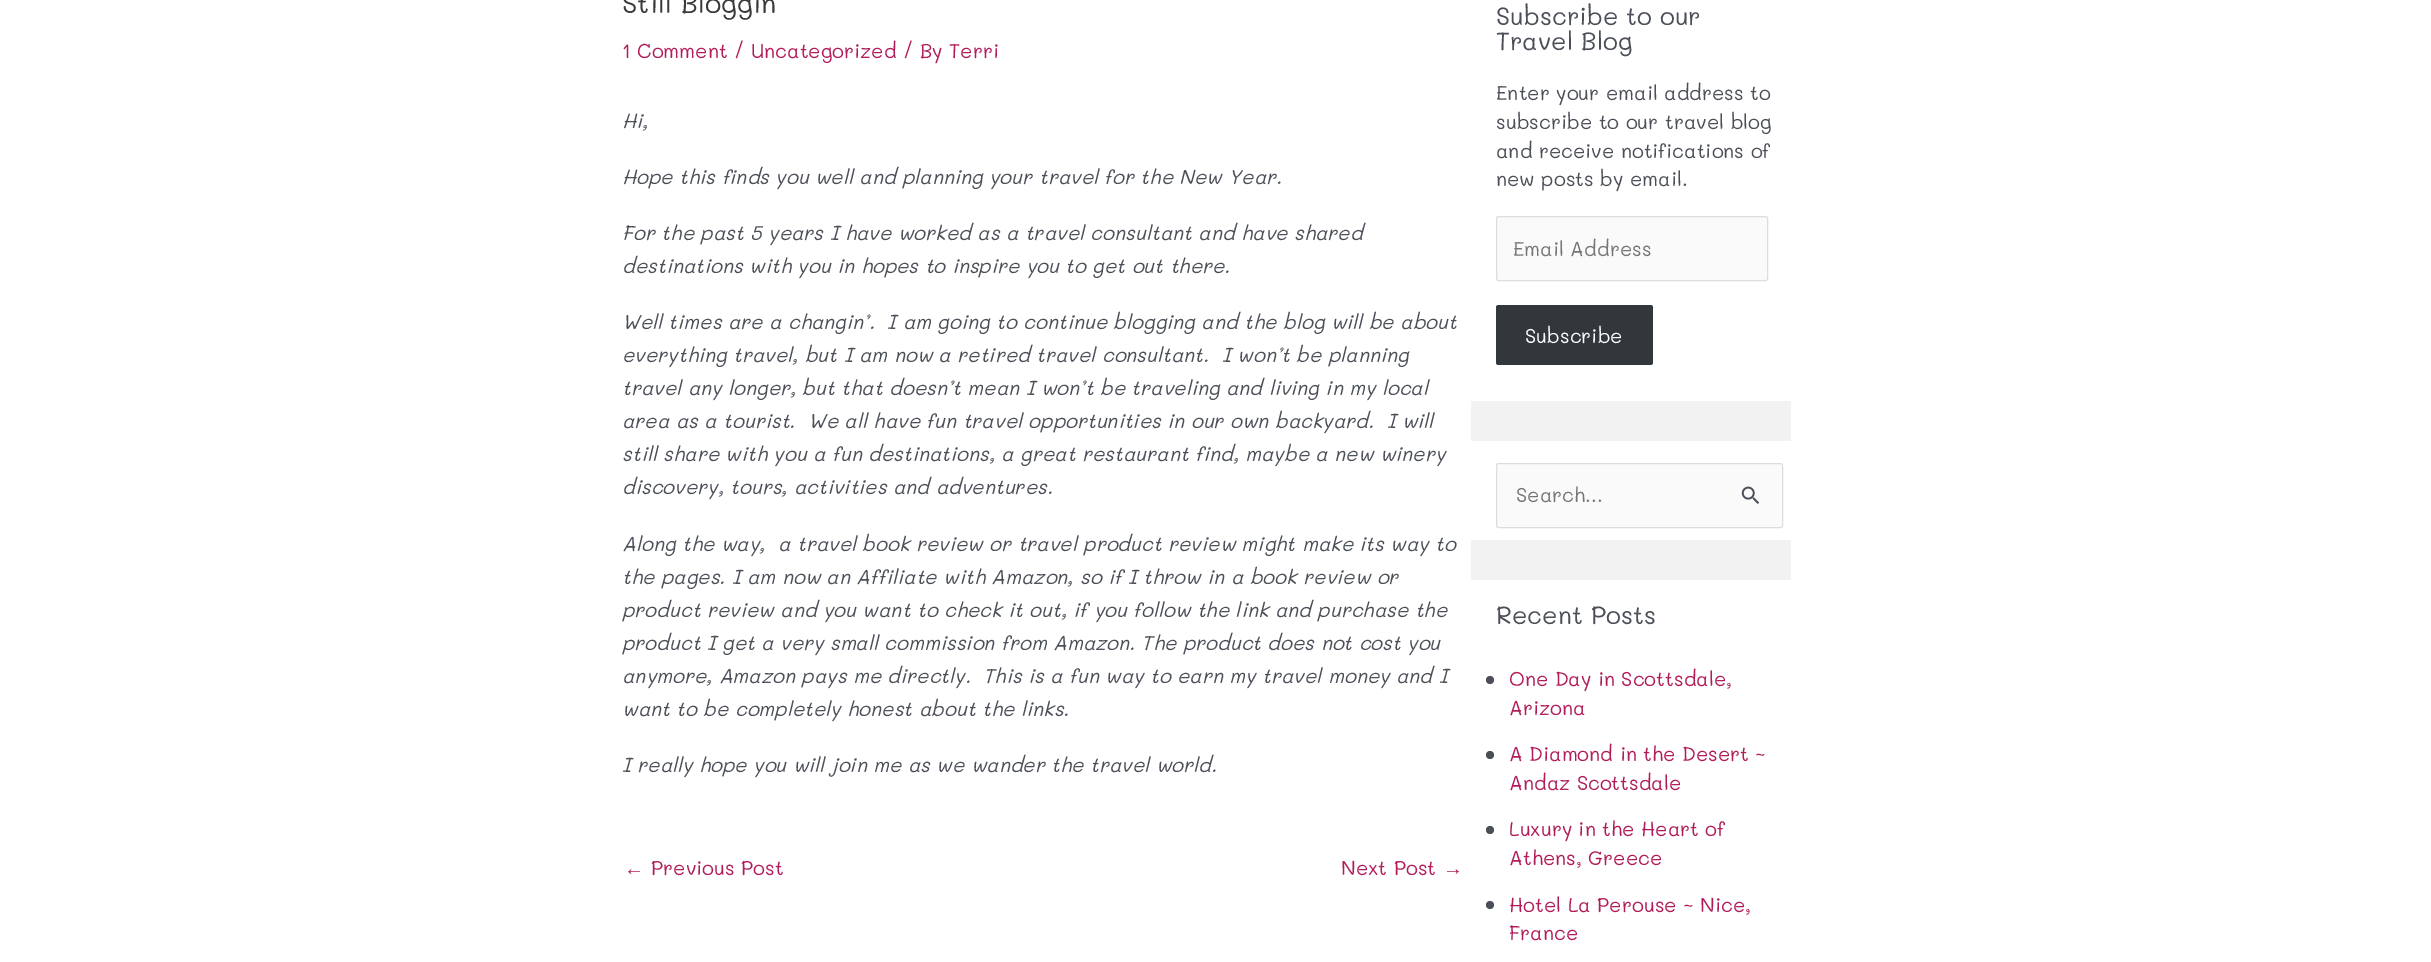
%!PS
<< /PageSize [2431 962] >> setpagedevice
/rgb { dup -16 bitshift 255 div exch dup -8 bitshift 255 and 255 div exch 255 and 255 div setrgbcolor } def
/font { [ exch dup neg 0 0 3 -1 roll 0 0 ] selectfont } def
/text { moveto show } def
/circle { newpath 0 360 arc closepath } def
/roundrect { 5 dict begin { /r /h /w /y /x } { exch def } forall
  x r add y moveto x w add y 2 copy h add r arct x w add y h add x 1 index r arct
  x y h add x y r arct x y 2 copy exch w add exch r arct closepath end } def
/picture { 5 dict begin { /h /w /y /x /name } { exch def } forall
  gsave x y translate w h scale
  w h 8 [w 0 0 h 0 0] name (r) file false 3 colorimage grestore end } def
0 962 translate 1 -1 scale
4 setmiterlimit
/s1 { /Mali-Regular 27.5 font 16#3A3A3A rgb } def
/s2 { /Mali-Regular 20 font 16#B11D5A rgb } def
/s3 { /Mali-Italic 20 font 16#4B4F58 rgb } def
/s4 { /LiberationSerif-Regular 20 font 16#B11D5A rgb } def
/s5 { /Mali-Regular 25 font 16#4B4F58 rgb } def
/s6 { /Mali-Regular 20 font 16#4B4F58 rgb } def
/s7 { /Mali-Regular 20 font 16#757575 rgb } def
/s8 { /Mali-Regular 20 font 16#FFFFFF rgb } def
16#FFFFFF rgb
0 0 2431 962 rectfill
s1
(Still Bloggin) 622 13 text
s2
(1 Comment / Uncategorized / By Terri) 622 58 text
s3
(Hi,) 622 128 text
(Hope this finds you well and planning your travel for the New Year.) 622 184 text
(For the past 5 years I have worked as a travel consultant and have shared) 622 240 text
(destinations with you in hopes to inspire you to get out there.) 622 273 text
(Well times are a changin’.  I am going to continue blogging and the blog will be about) 622 329 text
(everything travel, but I am now a retired travel consultant.  I won’t be planning) 622 362 text
(travel any longer, but that doesn’t mean I won’t be traveling and living in my local) 622 395 text
(area as a tourist.  We all have fun travel opportunities in our own backyard.  I will) 622 428 text
(still share with you a fun destinations, a great restaurant find, maybe a new winery) 622 461 text
(discovery, tours, activities and adventures.) 622 494 text
(Along the way,  a travel book review or travel product review might make its way to) 622 551 text
(the pages. I am now an Affiliate with Amazon, so if I throw in a book review or) 622 584 text
(product review and you want to check it out, if you follow the link and purchase the) 622 617 text
(product I get a very small commission from Amazon. The product does not cost you) 622 650 text
(anymore, Amazon pays me directly.  This is a fun way to earn my travel money and I) 622 683 text
(want to be completely honest about the links.) 622 716 text
(I really hope you will join me as we wander the travel world.) 622 772 text
s4
(←) 624 875 text
s2
(Previous Post) 651 875 text
(Next Post) 1341 875 text
s4
(→) 1443 875 text
16#F2F2F2 rgb
1471 401 320 179 rectfill
s5
(Subscribe to our) 1496 25 text
(Travel Blog) 1496 50 text
s6
(Enter your email address to) 1496 100 text
(subscribe to our travel blog) 1496 129 text
(and receive notifications of) 1496 158 text
(new posts by email.) 1496 186 text
16#FAFAFA rgb
1496.5 216.5 271 64 2 roundrect gsave fill grestore
16#DDDDDD rgb
stroke
s7
(Email Address) 1513 256 text
16#32373C rgb
1496 305 157 60 2.5 roundrect fill
s8
(Subscribe) 1525 343 text
1471 441 320 99 rectfill
16#FAFAFA rgb
1496.5 463.5 286 64 2 roundrect gsave fill grestore
16#DDDDDD rgb
stroke
s7
(Search...) 1516 502 text
(pic1.raw) 1741 486 19 18 picture
s5
(Recent Posts) 1496 624 text
1490 680 4 circle fill
s2
(One Day in Scottsdale,) 1509 686 text
(Arizona) 1509 715 text
16#4B4F58 rgb
1490 755 4 circle fill
s2
(A Diamond in the Desert ~) 1509 761 text
(Andaz Scottsdale) 1509 790 text
16#4B4F58 rgb
1490 830 4 circle fill
s2
(Luxury in the Heart of) 1509 836 text
(Athens, Greece) 1509 865 text
16#4B4F58 rgb
1490 905 4 circle fill
s2
(Hotel La Perouse ~ Nice,) 1509 912 text
(France) 1509 940 text
showpage
